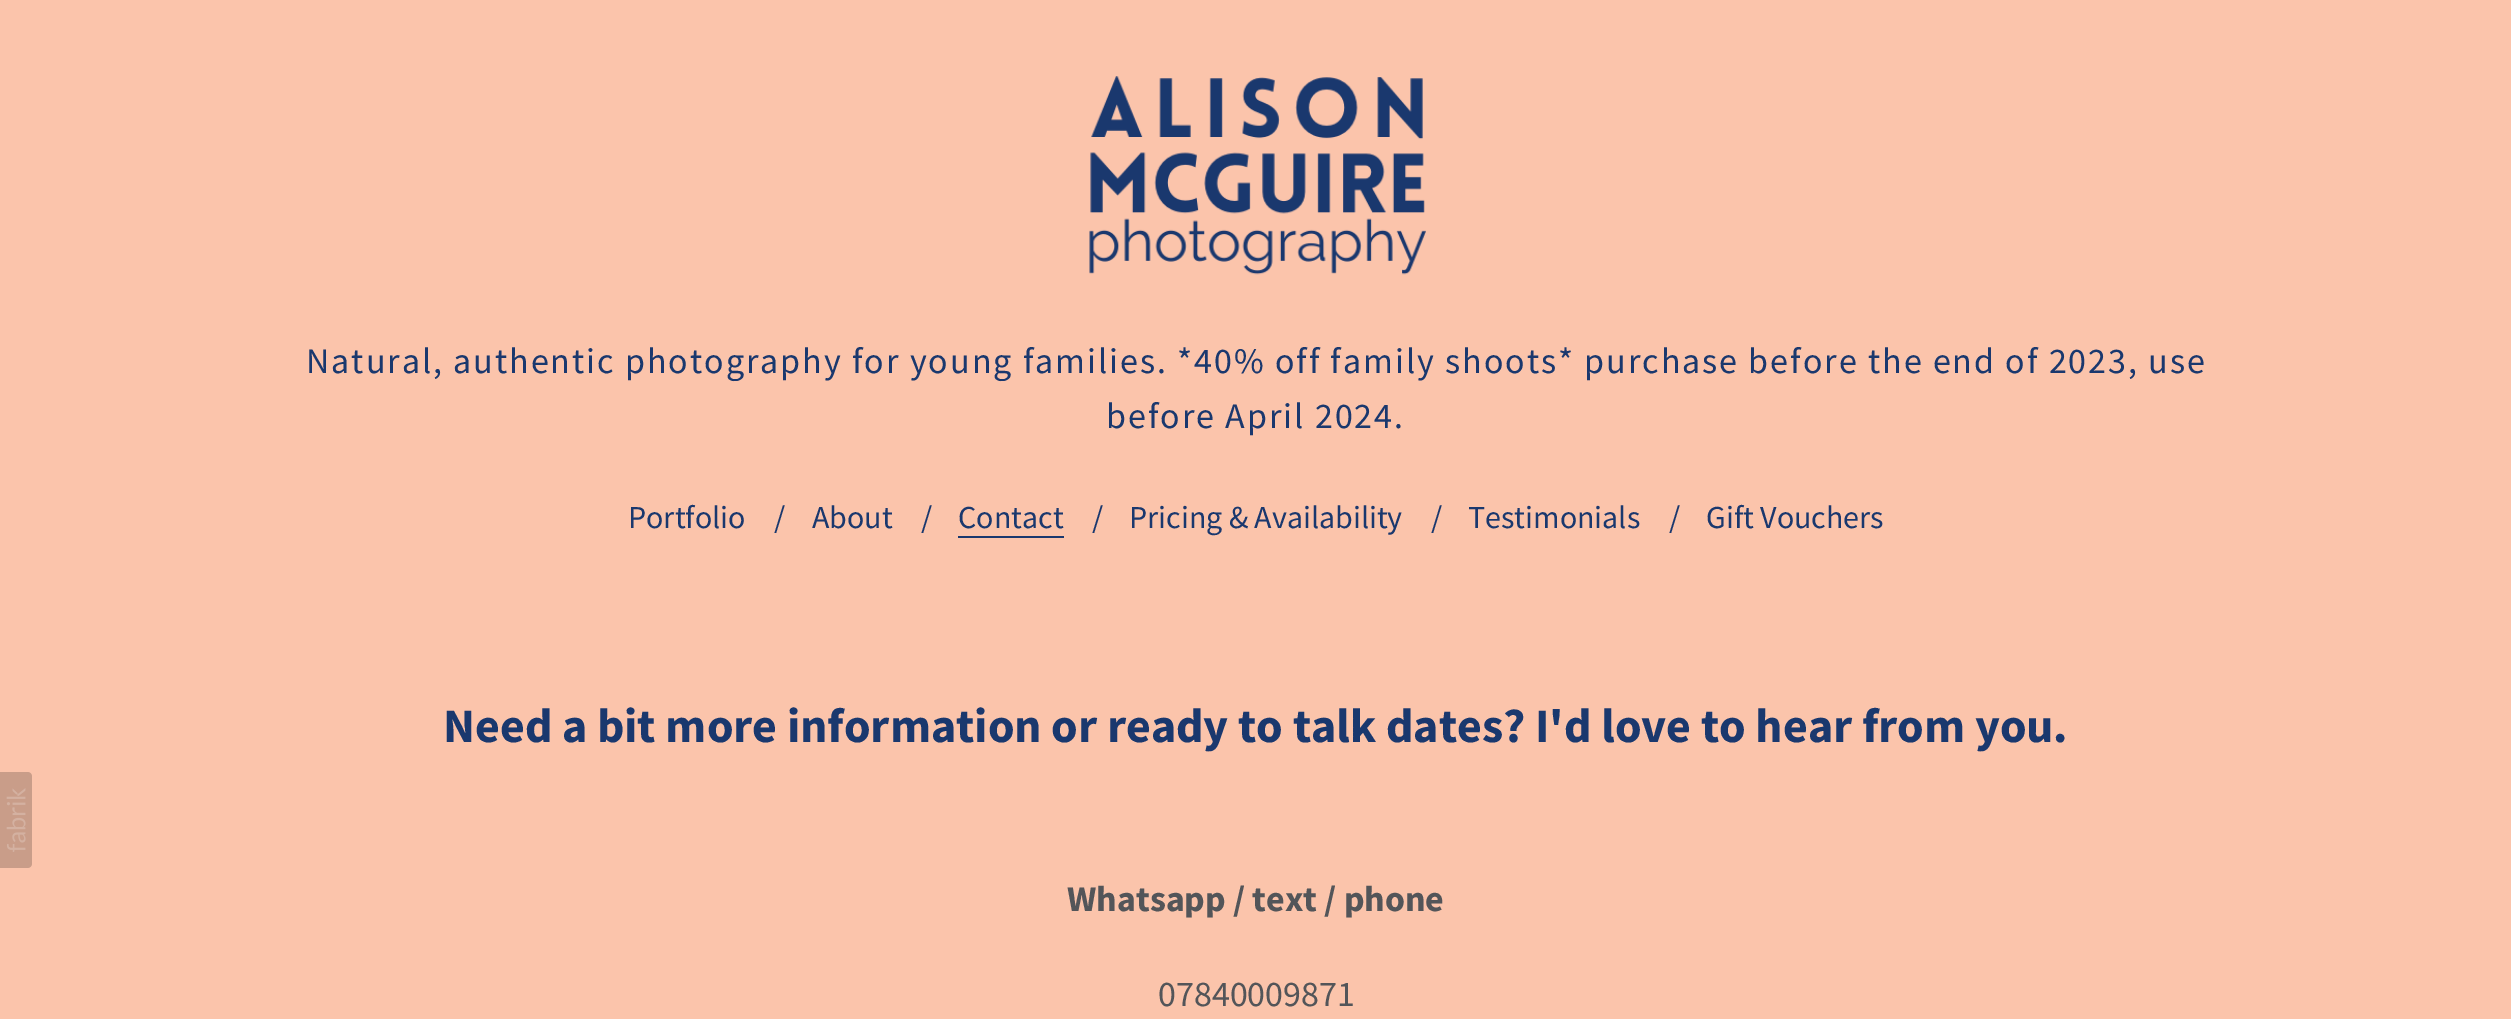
%!PS
<< /PageSize [2511 1019] >> setpagedevice
/rgb { dup -16 bitshift 255 div exch dup -8 bitshift 255 and 255 div exch 255 and 255 div setrgbcolor } def
/font { [ exch dup neg 0 0 3 -1 roll 0 0 ] selectfont } def
/text { moveto show } def
/picture { 5 dict begin { /h /w /y /x /name } { exch def } forall
  gsave x y translate w h scale
  w h 8 [w 0 0 h 0 0] name (r) file false 3 colorimage grestore end } def
0 1019 translate 1 -1 scale
4 setmiterlimit
/s1 { /SourceSansPro-Regular 32 font 16#1A386E rgb } def
/s2 { /SourceSansPro-Bold 48 font 16#1A386E rgb } def
/s3 { /SourceSansPro-Bold 36 font 16#535559 rgb } def
/s4 { /SourceSansPro-Regular 36 font 16#535559 rgb } def
16#FBC4AB rgb
0 0 2511 1019 rectfill
(pic1.raw) 0 772 32 96 picture
(pic2.raw) 1089 76 337 199 picture
/SourceSansPro-Regular 36 font
16#1A386E rgb
306 373 moveto 2 0 (Natural, authentic photography for young families. *40% off family shoots* purchase before the end of 2023, use) ashow
1106 428 moveto 2 0 (before April 2024.) ashow
s1
(Portfolio) 628 528 text
(/) 774 528 text
(About) 812 528 text
(/) 921 528 text
(Contact) 958 528 text
958 536 106 2 rectfill
(/) 1092 528 text
(Pricing & Availability) 1129 528 text
(/) 1431 528 text
(Testimonials) 1468 528 text
(/) 1669 528 text
(Gift Vouchers) 1706 528 text
s2
(Need a bit more information or ready to talk dates? I'd love to hear from you.) 443 742 text
s3
(Whatsapp / text / phone) 1067 911 text
s4
(07840009871) 1158 1006 text
showpage
